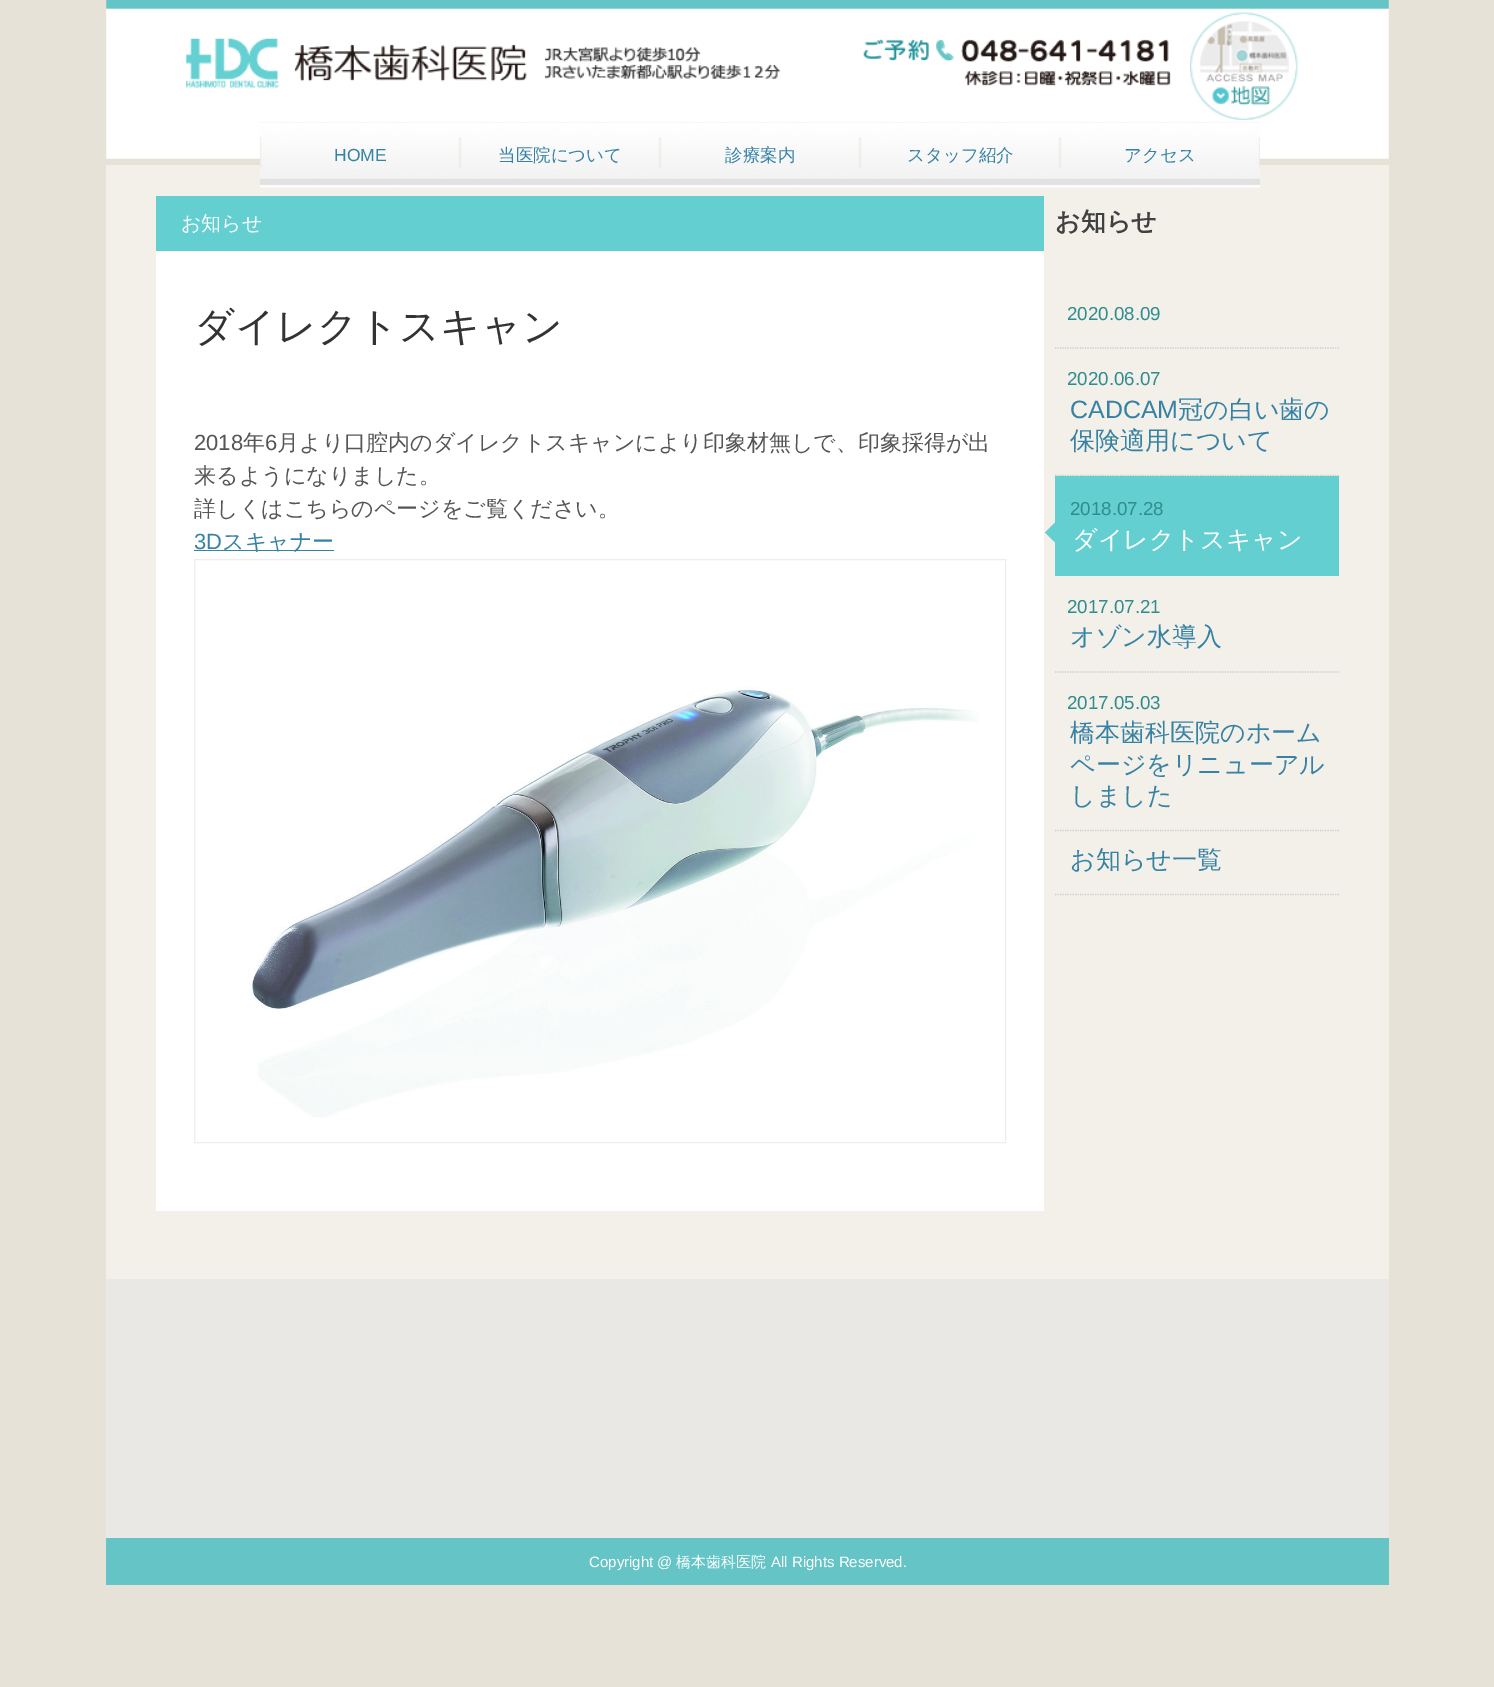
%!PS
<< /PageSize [1494 1687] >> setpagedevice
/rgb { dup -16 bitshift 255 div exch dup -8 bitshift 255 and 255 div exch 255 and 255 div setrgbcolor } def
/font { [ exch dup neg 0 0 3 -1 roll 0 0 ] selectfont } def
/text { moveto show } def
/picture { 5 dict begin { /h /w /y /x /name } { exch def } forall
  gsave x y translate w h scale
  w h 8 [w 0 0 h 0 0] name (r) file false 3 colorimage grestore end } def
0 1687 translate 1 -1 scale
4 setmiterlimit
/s1 { /LiberationSans-Regular 17.5 font 16#3582A4 rgb } def
/s2 { /WenQuanYiZenHei-Medium 17.5 font 16#3582A4 rgb } def
/s3 { /WenQuanYiZenHei-Medium 20 font 16#FFFFFF rgb } def
/s4 { /WenQuanYiZenHei-Medium 40 font 16#333333 rgb } def
/s5 { /LiberationSans-Regular 22 font 16#555555 rgb } def
/s6 { /WenQuanYiZenHei-Medium 22 font 16#555555 rgb } def
/s7 { /LiberationSans-Regular 22 font 16#3582A4 rgb } def
/s8 { /WenQuanYiZenHei-Medium 22 font 16#3582A4 rgb } def
/s9 { /WenQuanYiZenHei-Bold 25 font 16#404040 rgb } def
/s10 { /LiberationSans-Regular 18.75 font 16#308D8F rgb } def
/s11 { /LiberationSans-Regular 25 font 16#3582A4 rgb } def
/s12 { /WenQuanYiZenHei-Medium 25 font 16#3582A4 rgb } def
/s13 { /WenQuanYiZenHei-Medium 25 font 16#FFFFFF rgb } def
/s14 { /LiberationSans-Regular 15 font 16#FFFFFF rgb } def
/s15 { /WenQuanYiZenHei-Medium 15 font 16#FFFFFF rgb } def
16#E6E2D8 rgb
0 0 1494 1687 rectfill
(pic1.raw) 106 0 1283 159 picture
(pic2.raw) 186 38 341 50 picture
(pic3.raw) 544 47 237 32 picture
(pic4.raw) 863 38 308 48 picture
(pic5.raw) 1190 12 108 108 picture
16#F3F0E9 rgb
106 165 1283 1114 rectfill
(pic6.raw) 260 122 200 66 picture
s1
(HOME) 334 161 text
(pic6.raw) 460 122 200 66 picture
s2
(当医院について) 498 161 text
(pic7.raw) 660 122 200 66 picture
(診療案内) 725 161 text
(pic6.raw) 860 122 200 66 picture
(スタッフ紹介) 907 161 text
(pic8.raw) 1060 122 200 66 picture
(アクセス) 1124 161 text
16#FFFFFF rgb
156 251 888 960 rectfill
16#63CFD1 rgb
156 196 888 55 rectfill
s3
(お知らせ) 181 230 text
s4
(ダイレクトスキャン) 194 340 text
s5
(2018) 194 450 text
s6
(年) 243 450 text
s5
(6) 265 450 text
s6
(月より口腔内のダイレクトスキャンにより印象材無しで、印象採得が出) 277 450 text
(来るようになりました。) 194 483 text
(詳しくはこちらのページをご覧ください。) 194 516 text
s7
(3D) 194 549 text
194 550 140 1 rectfill
s8
(スキャナー) 222 549 text
16#EEEEEE rgb
194.5 559.5 811 583 rectstroke
(pic9.raw) 248 686 730 432 picture
s9
(お知らせ) 1055 230 text
16#CCCCCC rgb
1.2 setlinewidth
[1.25 1.25] 0 setdash
1055 348 moveto 1339 348 lineto stroke
s10
(2020.08.09) 1067 320 text
16#CCCCCC rgb
1055 475.5 moveto 1339 475.5 lineto stroke
s10
(2020.06.07) 1067 385 text
s11
(CADCAM) 1070 418 text
s12
(冠の白い歯の) 1178 418 text
(保険適用について) 1070 449 text
16#63CFD1 rgb
1055 476 284 100 rectfill
s10
(2018.07.28) 1070 515 text
16#63CFD1 rgb
1057.5 520 moveto 1057.5 545 lineto 1045 532.5 lineto closepath fill
s13
(ダイレクトスキャン) 1072 548 text
16#CCCCCC rgb
1055 672 moveto 1339 672 lineto stroke
s10
(2017.07.21) 1067 613 text
s12
(オゾン水導入) 1070 645 text
16#CCCCCC rgb
1055 830.5 moveto 1339 830.5 lineto stroke
s10
(2017.05.03) 1067 709 text
s12
(橋本歯科医院のホーム) 1070 741 text
(ページをリニューアル) 1070 773 text
(しました) 1070 804 text
16#CCCCCC rgb
1055 894.5 moveto 1339 894.5 lineto stroke
s12
(お知らせ一覧) 1070 868 text
16#E9E8E5 rgb
106 1279 1283 259 rectfill
16#65C4C6 rgb
106 1538 1283 47 rectfill
s14
(Copyright @) 589 1567 text
s15
(橋本歯科医院) 676 1567 text
s14
(All Rights Reserved.) 771 1567 text
showpage
